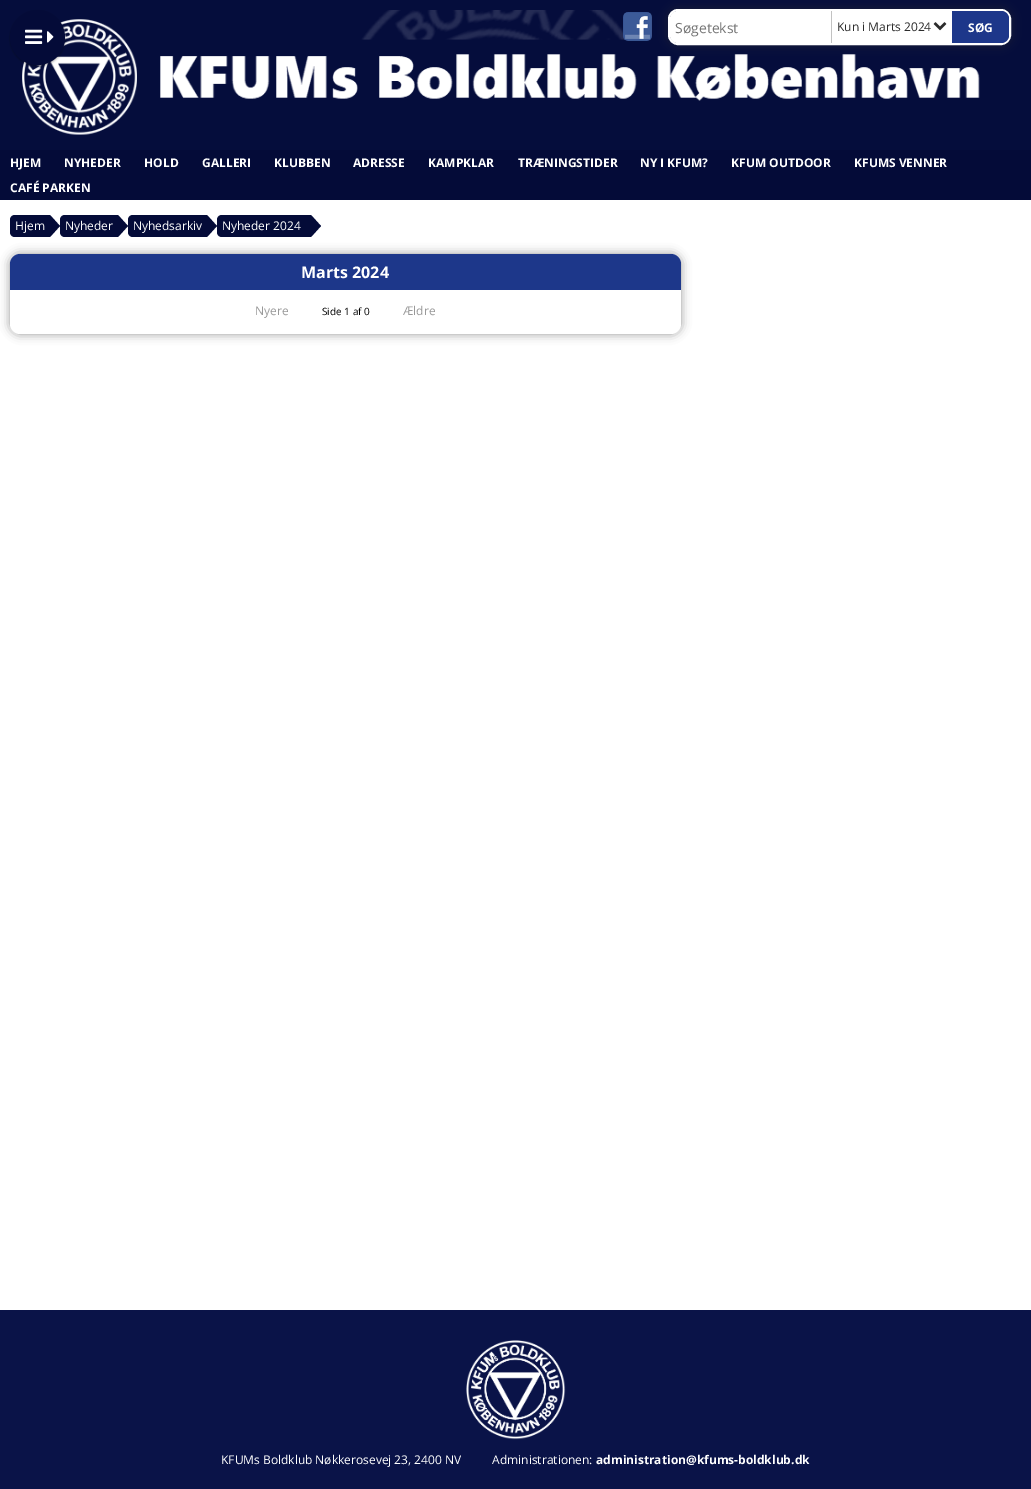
%!PS
<< /PageSize [1031 1489] /PageUsesTransparency true >> setpagedevice
/rgb { dup -16 bitshift 255 div exch dup -8 bitshift 255 and 255 div exch 255 and 255 div setrgbcolor } def
/font { [ exch dup neg 0 0 3 -1 roll 0 0 ] selectfont } def
/text { moveto show } def
/alpha { dup .setfillconstantalpha .setstrokeconstantalpha } def
/circle { newpath 0 360 arc closepath } def
/roundrect { 5 dict begin { /r /h /w /y /x } { exch def } forall
  x r add y moveto x w add y 2 copy h add r arct x w add y h add x 1 index r arct
  x y h add x y r arct x y 2 copy exch w add exch r arct closepath end } def
/shadow { 12 dict begin { /a /b /q /h /w /y /x } { exch def } forall gsave /was 0 def
  9 -2 -9 { dup b mul 4 div /e exch def 1 sub .425 mul 2.718 exch exp 1 add a .99 .min exch div /now exch def
    1 1 now sub 1 was sub div sub alpha /was now def
    w h .min e 2 mul add 0 gt { x e sub y e sub w e 2 mul add h e 2 mul add
      q e add b .6 mul add w h .min 2 div e add .min 0 .max roundrect fill } if } for grestore end } def
/picture { 5 dict begin { /h /w /y /x /name } { exch def } forall
  gsave x y translate w h scale
  w h 8 [w 0 0 h 0 0] name (r) file false 3 colorimage grestore end } def
0 .pushpdf14devicefilter
0 1489 translate 1 -1 scale
4 setmiterlimit
/s1 { /OpenSans-Regular 14 font 16#757575 rgb } def
/s2 { /OpenSans-Regular 12 font 16#2C2C2C rgb } def
/s3 { /OpenSans-Bold 12 font 16#FFFFFF rgb } def
/s4 { /OpenSans-Regular 12 font 16#FFFFFF rgb } def
/s5 { /OpenSans-Bold 16 font 16#FFFFFF rgb } def
/s6 { /OpenSans-Regular 12 font 16#999999 rgb } def
/s7 { /OpenSans-Regular 10 font 16#000000 rgb } def
16#040B38 rgb
0 0 1031 1489 rectfill
16#050D3C rgb
0 0 1031 150 rectfill
(pic3.raw) 22 10 958 125 picture
16#000000 rgb
10 11 55 55 27.5 1 0.24 shadow
10 11 55 55 27.5 1.5 0.12 shadow
16#040B38 rgb
37.5 37.5 27.5 circle fill
(pic1.raw) 25 29 18 15 picture
(pic2.raw) 47 31 7 12 picture
(pic4.raw) 623 12 29 29 picture
16#303030 rgb
668 9 343 36 10 5 0.5 shadow
16#FFFFFF rgb
2 setlinewidth
669 10 341 34 9 roundrect stroke
678 11 moveto 835 11 lineto 835 43 lineto 678 43 lineto 673.5 43 670 39.5 670 35 curveto 670 19 lineto 670 14.5 673.5 11 678 11 curveto closepath fill
s1
(Søgetekst) 675 33 text
16#FFFFFF rgb
835 11 117 32 rectfill
16#C2C2C2 rgb
831 11 1 32 rectfill
s2
(Kun i Marts 2024) 837 31 text
(pic5.raw) 933 22 14 9 picture
16#1D378A rgb
952 11 moveto 1001 11 lineto 1005.5 11 1009 14.5 1009 19 curveto 1009 35 lineto 1009 39.5 1005.5 43 1001 43 curveto 952 43 lineto closepath fill
s3
(SØG) 968 32 text
(HJEM) 10 167 text
(NYHEDER) 64 167 text
(HOLD) 144 167 text
(GALLERI) 202 167 text
(KLUBBEN) 274 167 text
(ADRESSE) 353 167 text
(KAMPKLAR) 428 167 text
(TRÆNINGSTIDER) 518 167 text
(NY I KFUM?) 640 167 text
(KFUM OUTDOOR) 731 167 text
(KFUMS VENNER) 854 167 text
(CAFÉ PARKEN) 10 192 text
0 200 1031 1110 rectfill
16#040B38 rgb
15 215 moveto 50 215 lineto 50 237 lineto 15 237 lineto 12 237 10 235 10 232 curveto 10 220 lineto 10 217 12 215 15 215 curveto closepath fill
s4
(Hjem) 15 230 text
16#040B38 rgb
50 237 moveto 50 215 lineto 60 226 lineto closepath fill
65 215 moveto 118 215 lineto 118 237 lineto 65 237 lineto 62 237 60 235 60 232 curveto 60 220 lineto 60 217 62 215 65 215 curveto closepath fill
s4
(Nyheder) 65 230 text
16#040B38 rgb
118 237 moveto 118 215 lineto 128 226 lineto closepath fill
133 215 moveto 207 215 lineto 207 237 lineto 133 237 lineto 130 237 128 235 128 232 curveto 128 220 lineto 128 217 130 215 133 215 curveto closepath fill
s4
(Nyhedsarkiv) 133 230 text
16#040B38 rgb
207 237 moveto 207 215 lineto 217 226 lineto closepath fill
222 215 moveto 311 215 lineto 311 237 lineto 222 237 lineto 219 237 217 235 217 232 curveto 217 220 lineto 217 217 219 215 222 215 curveto closepath fill
s4
(Nyheder 2024) 222 230 text
16#040B38 rgb
311 237 moveto 311 215 lineto 321 226 lineto closepath fill
16#303030 rgb
10 254 671 80 10 5 0.5 shadow
16#FFFFFF rgb
10 254 671 80 10 roundrect fill
16#1D378A rgb
20 254 moveto 671 254 lineto 676.5 254 681 258.5 681 264 curveto 681 290 lineto 10 290 lineto 10 264 lineto 10 258.5 14.5 254 20 254 curveto closepath fill
s5
(Marts 2024) 301 278 text
s6
(Nyere) 255 315 text
s7
(Side 1 af 0) 322 315 text
s6
(Ældre) 403 315 text
16#0A1348 rgb
0 1310 1031 179 rectfill
(pic6.raw) 466 1340 100 100 picture
s4
(KFUMs Boldklub Nøkkerosevej 23, 2400 NV          Administrationen:) 221 1464 text
s3
(administration@kfums-boldklub.dk) 596 1464 text
.poppdf14devicefilter showpage
